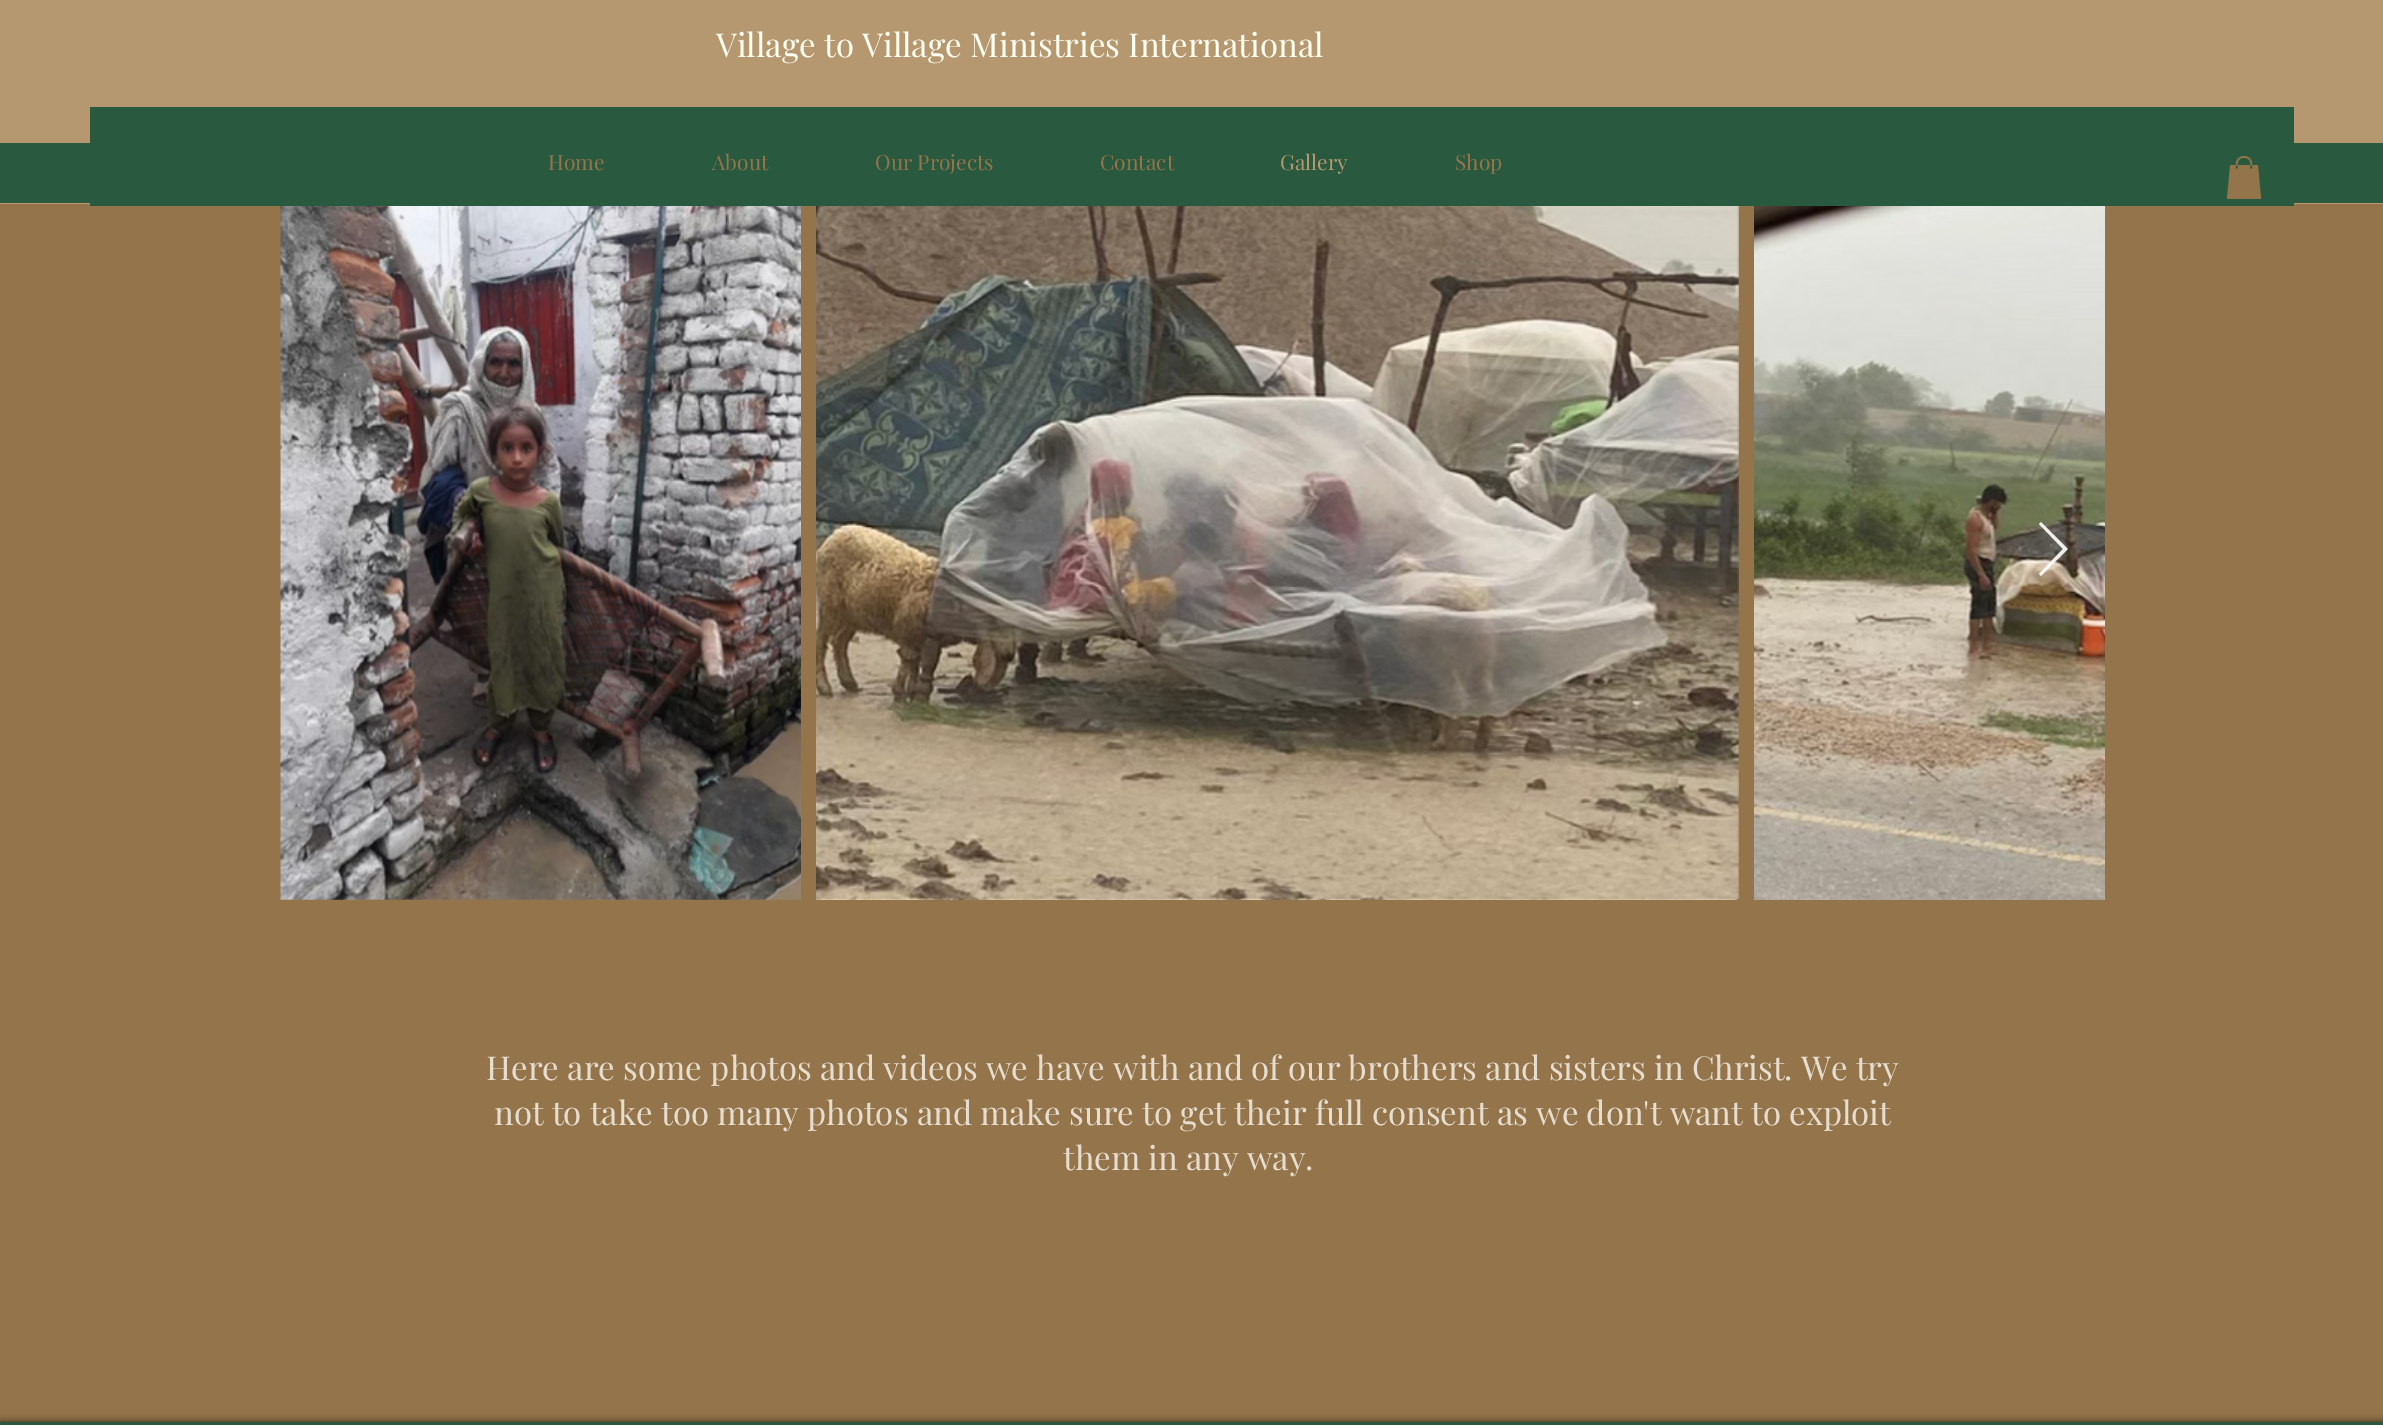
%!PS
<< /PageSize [2383 1425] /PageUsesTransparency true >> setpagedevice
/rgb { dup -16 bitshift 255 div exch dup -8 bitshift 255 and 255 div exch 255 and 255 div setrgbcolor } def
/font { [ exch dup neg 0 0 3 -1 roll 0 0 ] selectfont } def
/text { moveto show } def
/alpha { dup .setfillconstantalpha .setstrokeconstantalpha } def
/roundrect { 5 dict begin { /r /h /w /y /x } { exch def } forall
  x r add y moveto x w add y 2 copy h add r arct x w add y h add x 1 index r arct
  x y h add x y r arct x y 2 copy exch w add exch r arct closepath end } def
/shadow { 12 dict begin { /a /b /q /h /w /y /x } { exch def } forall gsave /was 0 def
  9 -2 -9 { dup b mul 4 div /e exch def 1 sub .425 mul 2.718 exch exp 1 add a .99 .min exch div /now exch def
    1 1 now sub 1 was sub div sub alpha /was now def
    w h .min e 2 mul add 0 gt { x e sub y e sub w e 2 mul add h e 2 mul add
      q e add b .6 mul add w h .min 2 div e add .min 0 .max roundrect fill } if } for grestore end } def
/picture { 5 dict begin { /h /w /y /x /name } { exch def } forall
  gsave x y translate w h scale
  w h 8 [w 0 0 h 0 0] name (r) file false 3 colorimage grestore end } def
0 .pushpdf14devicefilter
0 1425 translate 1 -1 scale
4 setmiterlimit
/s1 { /PlayfairDisplay-Regular 33 font 16#FFFEF2 rgb } def
/s2 { /PlayfairDisplay-Regular 21 font 16#93744B rgb } def
/s3 { /PlayfairDisplay-Regular 21 font 16#B69870 rgb } def
/s4 { /PlayfairDisplay-Regular 33 font 16#E7DDCF rgb } def
16#93744B rgb
0 0 2383 1425 rectfill
16#B69870 rgb
0 0 2383 204 rectfill
s1
(Village to Village Ministries International) 716 57 text
16#295A3F rgb
0 143 2383 60 rectfill
90 107 2204 99 rectfill
s2
(Home) 548 170 text
(About) 712 170 text
(Our Projects) 875 170 text
(Contact) 1100 170 text
s3
(Gallery) 1280 170 text
s2
(Shop) 1455 170 text
(pic1.raw) 2226 156 36 43 picture
(pic2.raw) 280 206 521 694 picture
(pic3.raw) 816 206 923 694 picture
(pic4.raw) 1754 206 351 694 picture
0.9 alpha
16#FFFFFF rgb
2039 524 moveto 2041 522 lineto 2068 549 lineto 2041 576 lineto 2039 574 lineto 2063 549 lineto closepath fill
1 alpha
s4
(Here are some photos and videos we have with and of our brothers and sisters in Christ. We try) 486 1080 text
(not to take too many photos and make sure to get their full consent as we don't want to exploit) 494 1125 text
(them in any way.) 1063 1170 text
16#000000 rgb
0 1422 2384 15 0 4 0.7 shadow
16#295A3F rgb
0 1422 2383 3 rectfill
.poppdf14devicefilter showpage
